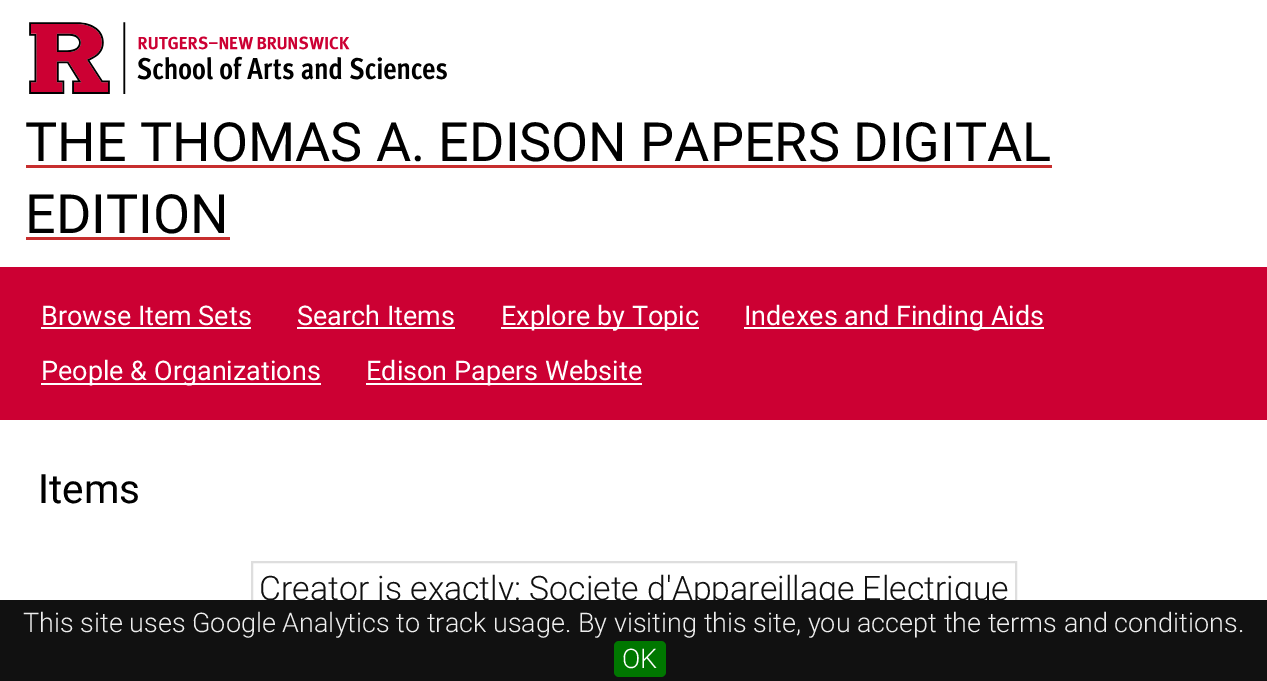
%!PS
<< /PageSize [1267 681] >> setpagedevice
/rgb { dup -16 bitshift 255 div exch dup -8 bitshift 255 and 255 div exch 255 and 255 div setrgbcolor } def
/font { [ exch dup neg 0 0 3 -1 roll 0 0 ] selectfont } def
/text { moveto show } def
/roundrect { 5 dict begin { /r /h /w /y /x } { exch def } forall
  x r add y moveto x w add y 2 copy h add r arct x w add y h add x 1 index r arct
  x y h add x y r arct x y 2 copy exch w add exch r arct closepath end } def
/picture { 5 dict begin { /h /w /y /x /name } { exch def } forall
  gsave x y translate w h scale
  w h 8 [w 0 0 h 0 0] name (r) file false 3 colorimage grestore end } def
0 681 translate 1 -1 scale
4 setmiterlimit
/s1 { /Roboto-Regular 54 font 16#000000 rgb } def
/s2 { /Roboto-Regular 27 font 16#FFFFFF rgb } def
/s3 { /Roboto-Regular 40.5 font 16#000000 rgb } def
/s4 { /Roboto-Light 33.75 font 16#111111 rgb } def
/s5 { /Roboto-Light 27 font 16#EEEEEE rgb } def
/s6 { /Roboto-Light 27 font 16#FFFFFF rgb } def
16#FFFFFF rgb
0 0 1267 681 rectfill
(pic1.raw) 29 22 418 72 picture
s1
(THE THOMAS A. EDISON PAPERS DIGITAL) 25 161 text
16#C72E2E rgb
26 165 1026 3 rectfill
s1
(EDITION) 25 233 text
16#C72E2E rgb
26 237 204 3 rectfill
16#CC0033 rgb
0 267 1267 153 rectfill
s2
(Browse Item Sets) 41 325 text
41 327 210 2 rectfill
(Search Items) 297 325 text
297 327 158 2 rectfill
501 327 198 2 rectfill
(Explore by Topic) 501 325 text
744 327 300 2 rectfill
(Indexes and Finding Aids) 744 325 text
41 383 280 2 rectfill
(People & Organizations) 41 380 text
366 383 276 2 rectfill
(Edison Papers Website) 366 380 text
s3
(Items) 38 503 text
16#DEDEDE rgb
2 setlinewidth
252 562 764 52 rectstroke
s4
(Creator is exactly: Societe d'Appareillage Electrique) 259 600 text
0 600 1267 81 rectfill
s5
(This site uses Google Analytics to track usage. By visiting this site, you accept the terms and conditions.) 23 632 text
16#007700 rgb
614 641 52 36 5 roundrect fill
s6
(OK) 622 668 text
showpage
